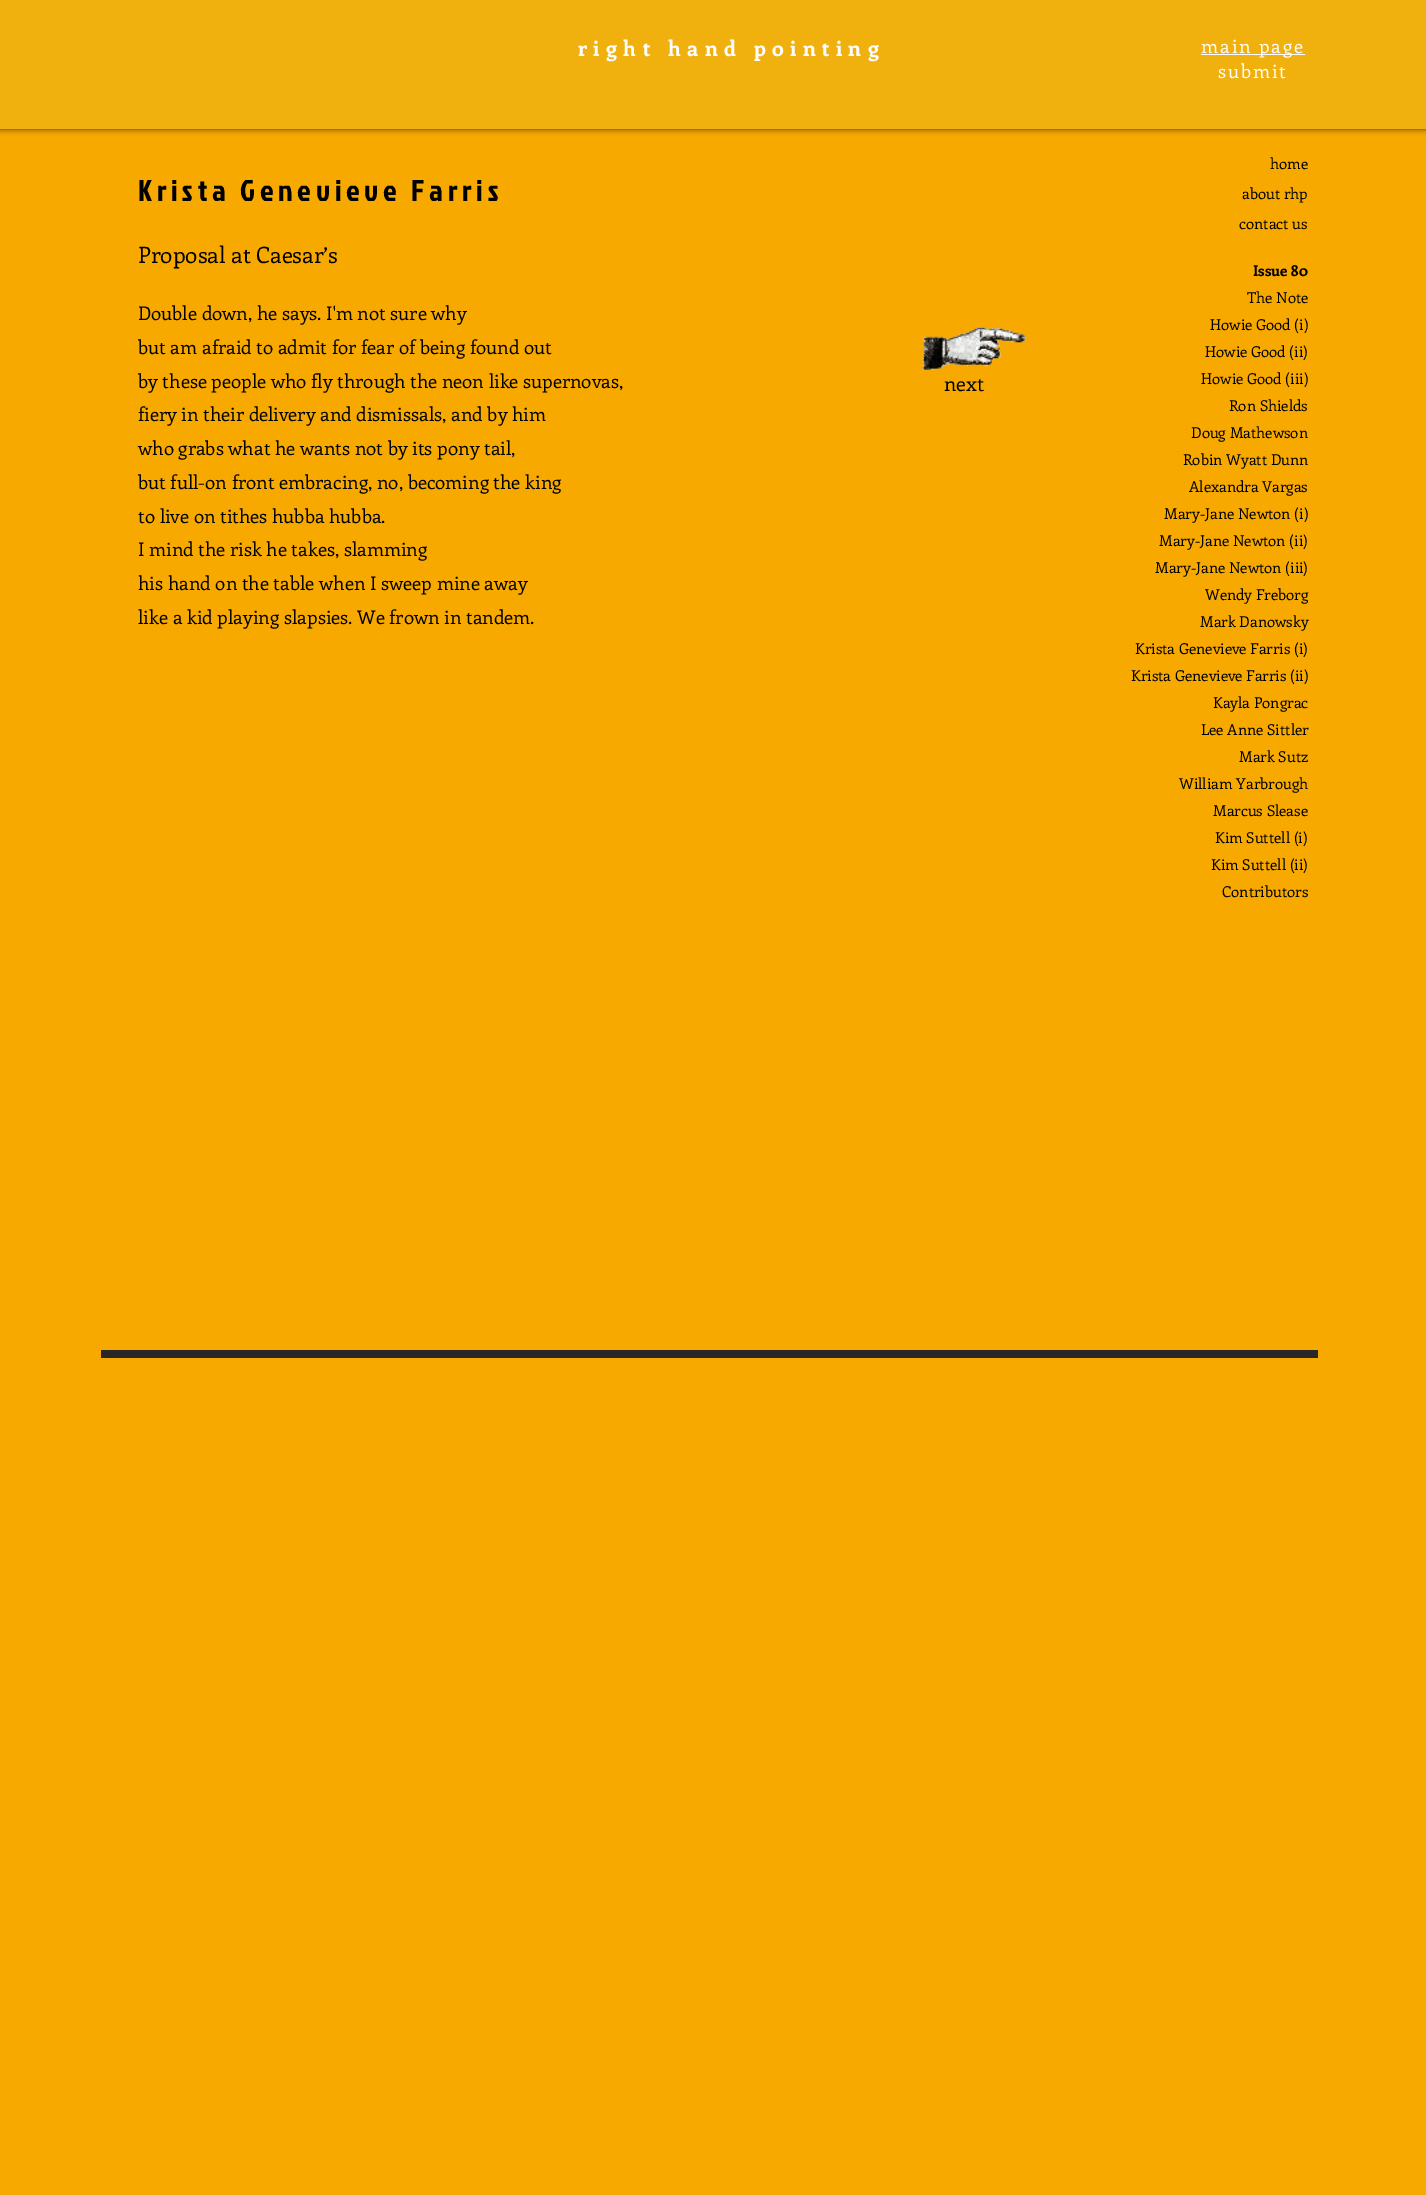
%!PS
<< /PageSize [1426 2195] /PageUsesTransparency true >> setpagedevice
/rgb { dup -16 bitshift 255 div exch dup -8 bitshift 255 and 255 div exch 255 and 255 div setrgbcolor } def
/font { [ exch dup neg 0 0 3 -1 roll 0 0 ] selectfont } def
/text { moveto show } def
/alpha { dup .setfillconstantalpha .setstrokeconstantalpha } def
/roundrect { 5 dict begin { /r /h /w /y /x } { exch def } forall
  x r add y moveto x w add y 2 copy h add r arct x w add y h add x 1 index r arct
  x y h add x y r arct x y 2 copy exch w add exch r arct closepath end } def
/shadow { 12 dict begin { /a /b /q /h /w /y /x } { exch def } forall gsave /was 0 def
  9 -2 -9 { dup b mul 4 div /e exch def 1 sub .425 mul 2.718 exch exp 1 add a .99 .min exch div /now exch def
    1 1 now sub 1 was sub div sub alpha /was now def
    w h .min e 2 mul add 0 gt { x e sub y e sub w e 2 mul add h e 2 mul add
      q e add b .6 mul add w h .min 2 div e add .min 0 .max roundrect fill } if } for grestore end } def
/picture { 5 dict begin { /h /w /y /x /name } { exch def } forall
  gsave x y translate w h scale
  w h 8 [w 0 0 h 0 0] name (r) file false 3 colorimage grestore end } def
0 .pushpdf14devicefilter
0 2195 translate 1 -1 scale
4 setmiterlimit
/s1 { /JockeyOne-Regular 30 font 16#000000 rgb } def
/s2 { /Enriqueta-Regular 15 font 16#000000 rgb } def
/s3 { /Enriqueta-Bold 15 font 16#000000 rgb } def
/s4 { /Enriqueta-Regular 22.5 font 16#000000 rgb } def
/s5 { /Enriqueta-Regular 18.75 font 16#000000 rgb } def
/s6 { /Enriqueta-Regular 20 font 16#000000 rgb } def
16#F7A900 rgb
0 0 1426 2195 rectfill
16#000000 rgb
0 0 1426 129 0 3 0.7 shadow
16#F0B10F rgb
0 0 1426 129 rectfill
/Enriqueta-Bold 21.25 font
16#FEFDFD rgb
578 56 moveto 6.4 0 (right hand pointing) ashow
1201 54 104 1 rectfill
/Enriqueta-Regular 18.75 font
1201 53 moveto 1.9 0 (main page) ashow
1218 78 moveto 1.9 0 (submit) ashow
s1
(K r i s t a   G e n e v i e v e   F a r r i s) 138 201 text
s2
(home) 1270 169 text
(about rhp) 1242 199 text
(contact us) 1239 229 text
s3
(Issue 80) 1253 276 text
s2
(The Note) 1247 303 text
(Howie Good \(i\)) 1210 330 text
(Howie Good \(ii\)) 1205 357 text
(Howie Good \(iii\)) 1201 384 text
(Ron Shields) 1229 411 text
(Doug Mathewson) 1191 438 text
(Robin Wyatt Dunn) 1183 465 text
(Alexandra Vargas) 1189 492 text
(Mary-Jane Newton \(i\)) 1164 519 text
(Mary-Jane Newton \(ii\)) 1159 546 text
(Mary-Jane Newton \(iii\)) 1155 573 text
(Wendy Freborg) 1205 600 text
(Mark Danowsky) 1200 627 text
(Krista Genevieve Farris \(i\)) 1135 654 text
(Krista Genevieve Farris \(ii\)) 1131 681 text
(Kayla Pongrac) 1213 708 text
(Lee Anne Sittler) 1201 735 text
(Mark Sutz) 1239 762 text
(William Yarbrough) 1179 789 text
(Marcus Slease) 1213 816 text
(Kim Suttell \(i\)) 1215 843 text
(Kim Suttell \(ii\)) 1211 870 text
(Contributors) 1222 897 text
s4
(Proposal at Caesar’s) 138 263 text
s5
(Double down, he says. I'm not sure why) 138 320 text
(but am afraid to admit for fear of being found out) 138 354 text
(by these people who fly through the neon like supernovas,) 138 388 text
(fiery in their delivery and dismissals, and by him) 138 421 text
(who grabs what he wants not by its pony tail,) 138 455 text
(but full-on front embracing, no, becoming the king) 138 489 text
(to live on tithes hubba hubba.) 138 523 text
(I mind the risk he takes, slamming) 138 556 text
(his hand on the table when I sweep mine away) 138 590 text
(like a kid playing slapsies. We frown in tandem.) 138 624 text
(pic1.raw) 922 327 105 43 picture
s6
(next) 944 391 text
16#282626 rgb
101 1350 1217 8 rectfill
.poppdf14devicefilter showpage
